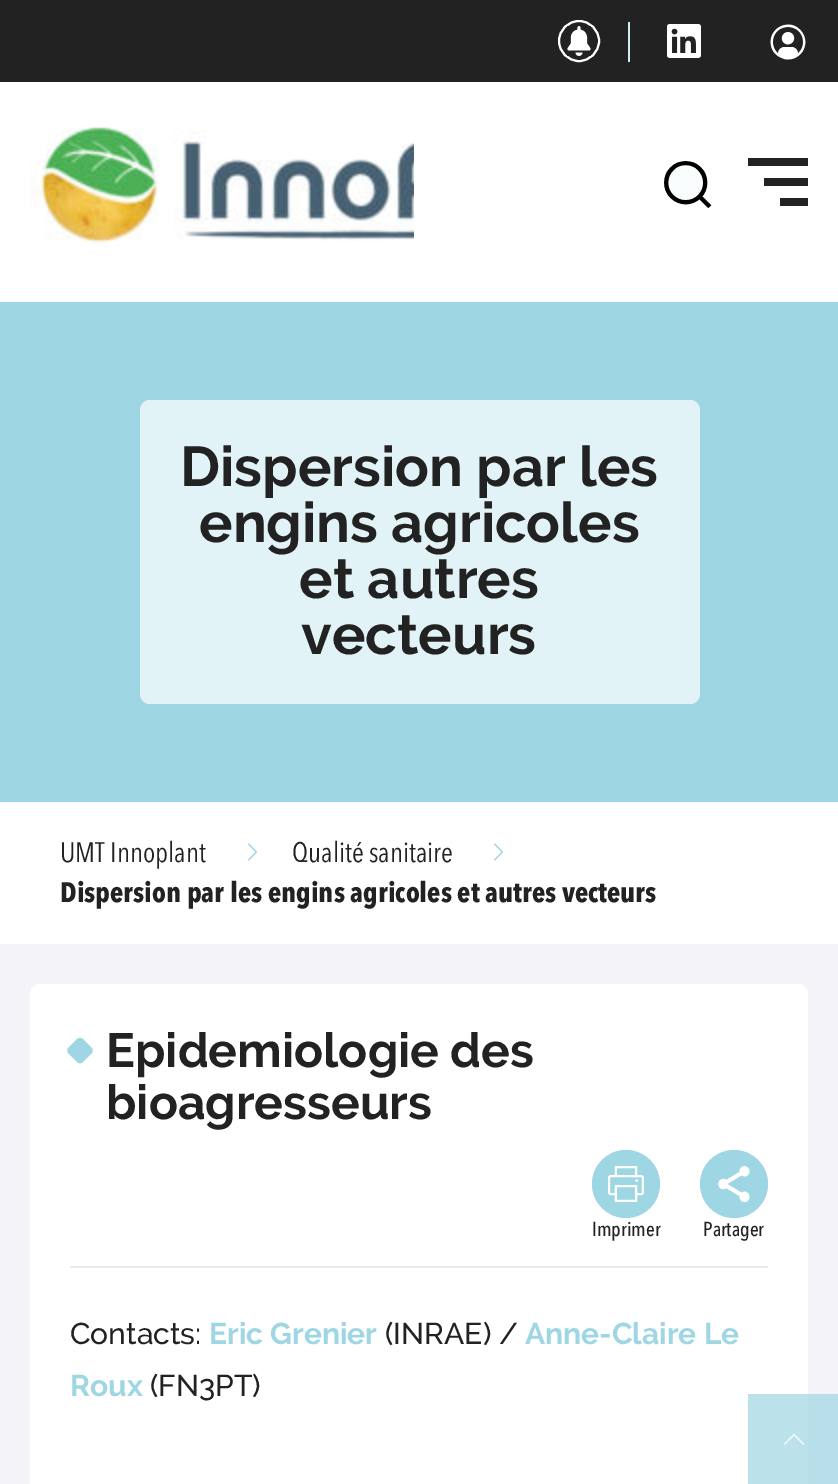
%!PS
<< /PageSize [838 1484] >> setpagedevice
/rgb { dup -16 bitshift 255 div exch dup -8 bitshift 255 and 255 div exch 255 and 255 div setrgbcolor } def
/font { [ exch dup neg 0 0 3 -1 roll 0 0 ] selectfont } def
/text { moveto show } def
/circle { newpath 0 360 arc closepath } def
/roundrect { 5 dict begin { /r /h /w /y /x } { exch def } forall
  x r add y moveto x w add y 2 copy h add r arct x w add y h add x 1 index r arct
  x y h add x y r arct x y 2 copy exch w add exch r arct closepath end } def
/picture { 5 dict begin { /h /w /y /x /name } { exch def } forall
  gsave x y translate w h scale
  w h 8 [w 0 0 h 0 0] name (r) file false 3 colorimage grestore end } def
0 1484 translate 1 -1 scale
4 setmiterlimit
/s1 { /Raleway-Bold 56 font 16#222222 rgb } def
/s2 { /AvenirNext-Regular 28 font 16#222222 rgb } def
/s3 { /AvenirNext-Bold 28 font 16#222222 rgb } def
/s4 { /Raleway-Bold 48 font 16#222222 rgb } def
/s5 { /AvenirNext-Medium 20 font 16#222222 rgb } def
/s6 { /Raleway-Medium 30 font 16#222222 rgb } def
/s7 { /Raleway-Bold 30 font 16#9ED6E3 rgb } def
16#FFFFFF rgb
0 0 838 1484 rectfill
16#222222 rgb
0 0 838 82 rectfill
16#FFFFFF rgb
2 setlinewidth
579 41 20 circle stroke
(pic1.raw) 567 26 24 30 picture
16#CEEEF6 rgb
628 22 2 40 rectfill
(pic2.raw) 667 24 34 34 picture
(pic3.raw) 770 24 36 36 picture
(pic4.raw) 30 127 384 127 picture
(pic5.raw) 664 161 48 48 picture
16#222222 rgb
748 158 60 8 rectfill
764 178 44 8 rectfill
780 198 28 8 rectfill
16#9ED6E3 rgb
0 302 838 500 rectfill
16#E2F3F7 rgb
140 400 560 304 10 roundrect fill
s1
(Dispersion par les) 180 486 text
(engins agricoles) 199 542 text
(et autres) 299 598 text
(vecteurs) 301 654 text
s2
(UMT Innoplant) 60 862 text
(pic6.raw) 248 843 9 18 picture
(Qualité sanitaire) 292 862 text
(pic7.raw) 494 843 9 18 picture
s3
(Dispersion par les engins agricoles et autres vecteurs) 60 902 text
16#F3F3F8 rgb
0 944 838 540 rectfill
16#B8DFE9 rgb
808 1394 30 90 rectfill
16#FFFFFF rgb
30 984 778 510 10 roundrect fill
16#BBE2EB rgb
748 1394 60 90 rectfill
16#EAEAEA rgb
70 1266 698 2 rectfill
16#9ED6E3 rgb
83 1039 moveto 91.5 1047.5 lineto 93 1049 93 1052 91.5 1053.5 curveto 83 1062 lineto 81.5 1063.5 78.5 1063.5 77 1062 curveto 68.5 1053.5 lineto 67 1052 67 1049 68.5 1047.5 curveto 77 1039 lineto 78.5 1037.5 81.5 1037.5 83 1039 curveto closepath fill
s4
(Epidemiologie des) 106 1067 text
(bioagresseurs) 106 1119 text
16#9ED6E3 rgb
626 1184 34 circle fill
(pic8.raw) 608 1166 36 36 picture
s5
(Imprimer) 592 1236 text
16#9ED6E3 rgb
734 1184 34 circle fill
(pic9.raw) 718 1166 32 36 picture
s5
(Partager) 703 1236 text
s6
(Contacts:) 70 1344 text
s7
(Eric Grenier) 209 1344 text
s6
(\(INRAE\) /) 385 1344 text
s7
(Anne-Claire Le) 525 1344 text
(Roux) 70 1396 text
s6
(\(FN3PT\)) 150 1396 text
(pic10.raw) 783 1433 22 12 picture
showpage
